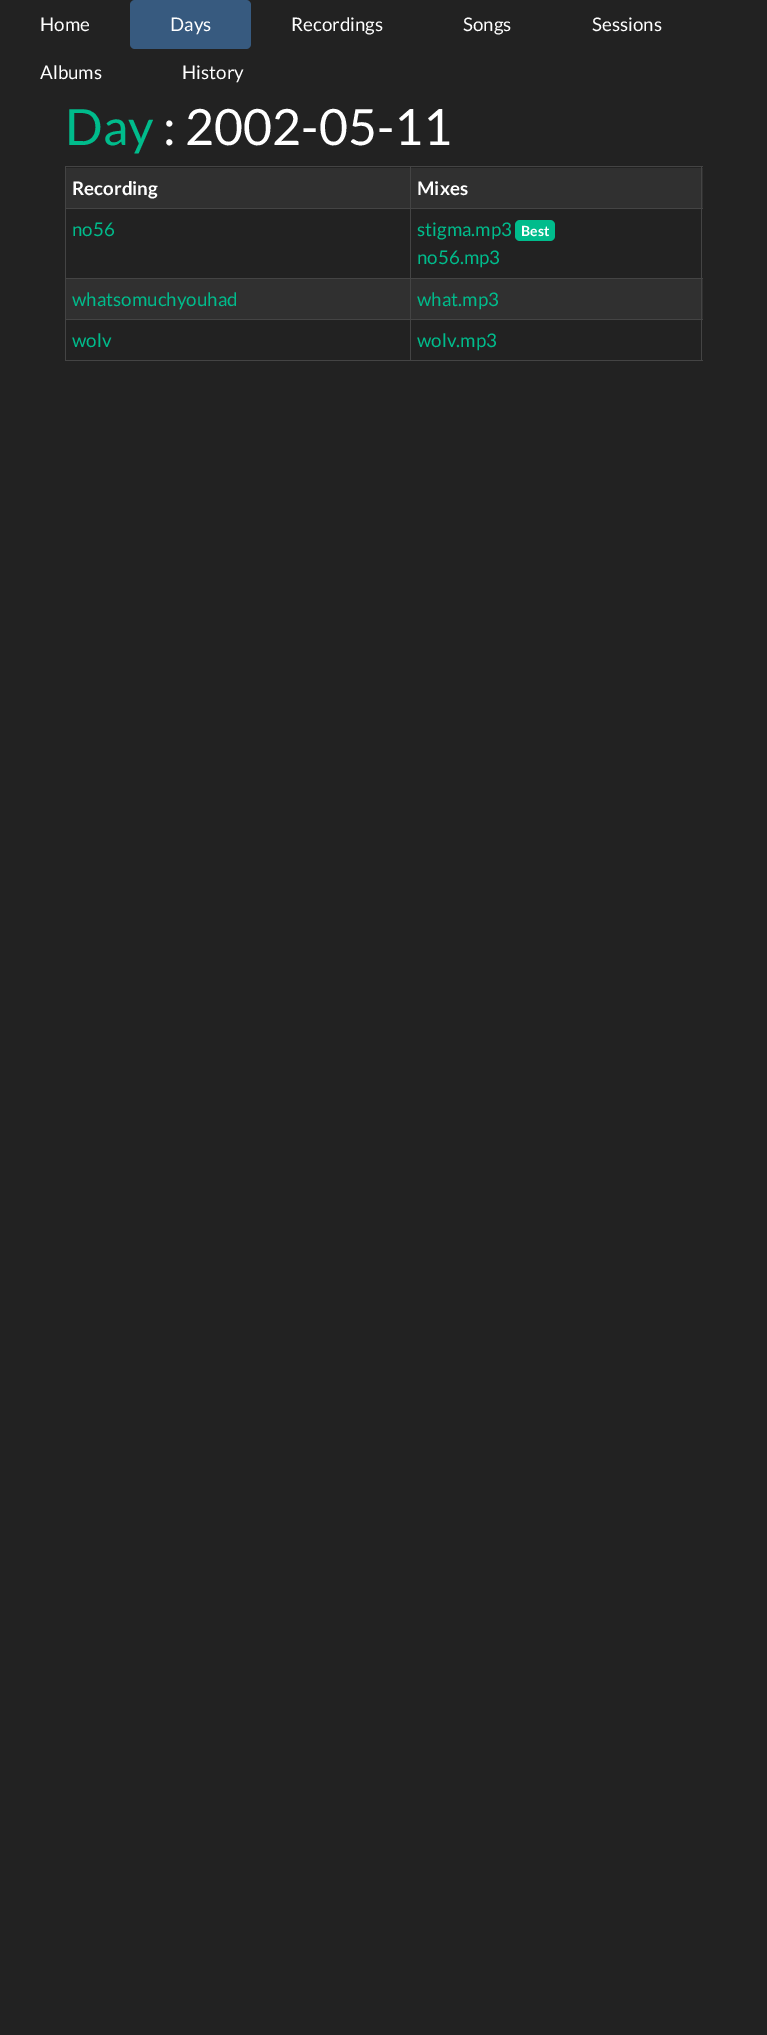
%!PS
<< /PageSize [767 2035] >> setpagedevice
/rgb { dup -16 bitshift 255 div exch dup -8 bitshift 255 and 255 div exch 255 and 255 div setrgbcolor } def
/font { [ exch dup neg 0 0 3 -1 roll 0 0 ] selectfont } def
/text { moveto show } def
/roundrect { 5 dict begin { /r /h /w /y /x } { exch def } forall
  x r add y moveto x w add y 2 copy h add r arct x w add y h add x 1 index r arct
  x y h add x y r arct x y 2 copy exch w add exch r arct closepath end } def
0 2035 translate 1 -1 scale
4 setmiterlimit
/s1 { /Lato-Regular 18.75 font 16#FFFFFF rgb } def
/s2 { /Lato-Regular 50 font 16#00BC8C rgb } def
/s3 { /Lato-Regular 50 font 16#FFFFFF rgb } def
/s4 { /Lato-Bold 18.75 font 16#FFFFFF rgb } def
/s5 { /Lato-Regular 18.75 font 16#00BC8C rgb } def
/s6 { /Lato-Bold 14 font 16#FFFFFF rgb } def
16#222222 rgb
0 0 767 2035 rectfill
s1
(Home) 40 31 text
16#375A7F rgb
130 0 121 49 5 roundrect fill
s1
(Days) 170 31 text
(Recordings) 291 31 text
(Songs) 463 31 text
(Sessions) 592 31 text
(Albums) 40 79 text
(History) 182 79 text
s2
(Day) 65 145 text
s3
(: 2002-05-11) 163 145 text
16#444444 rgb
65 166 638 1 rectfill
16#303030 rgb
66 168 637 40 rectfill
66 279 637 40 rectfill
16#444444 rgb
701 166 1 195 rectfill
65 360 638 1 rectfill
65 166 1 195 rectfill
s4
(Recording) 72 195 text
16#444444 rgb
410 208 293 1 rectfill
410 278 293 1 rectfill
410 319 293 1 rectfill
410 319 1 42 rectfill
65 319 346 1 rectfill
410 278 1 42 rectfill
65 278 346 1 rectfill
410 208 1 71 rectfill
65 208 346 1 rectfill
410 166 1 43 rectfill
s4
(Mixes) 417 195 text
s5
(no56) 72 236 text
(stigma.mp3) 417 236 text
515 220 40 21 5 roundrect fill
s6
(Best) 521 236 text
s5
(no56.mp3) 417 264 text
(whatsomuchyouhad) 72 306 text
(what.mp3) 417 306 text
(wolv) 72 347 text
(wolv.mp3) 417 347 text
showpage
